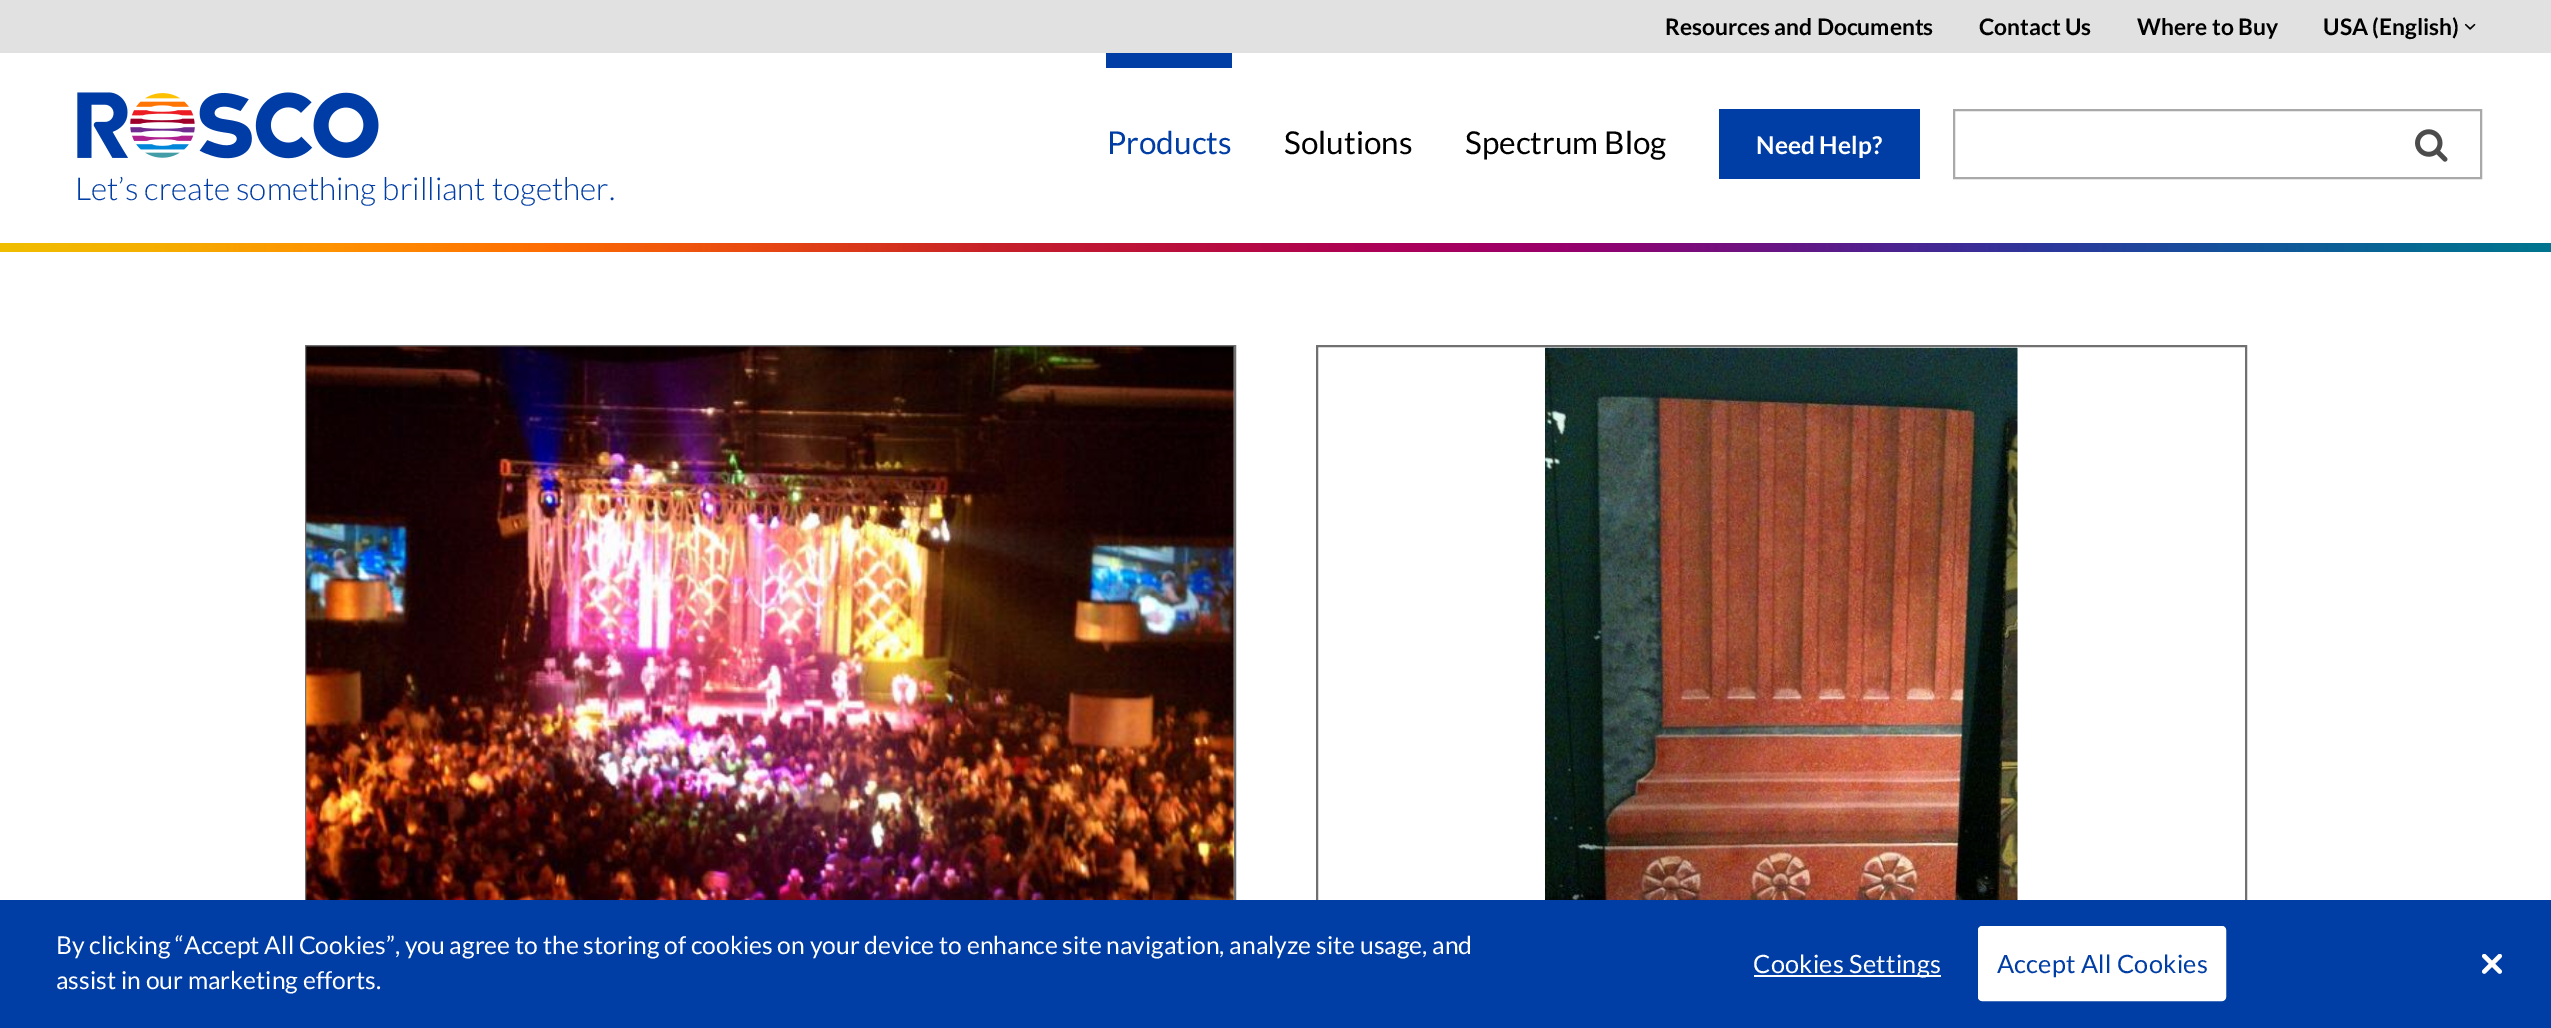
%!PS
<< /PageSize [2551 1028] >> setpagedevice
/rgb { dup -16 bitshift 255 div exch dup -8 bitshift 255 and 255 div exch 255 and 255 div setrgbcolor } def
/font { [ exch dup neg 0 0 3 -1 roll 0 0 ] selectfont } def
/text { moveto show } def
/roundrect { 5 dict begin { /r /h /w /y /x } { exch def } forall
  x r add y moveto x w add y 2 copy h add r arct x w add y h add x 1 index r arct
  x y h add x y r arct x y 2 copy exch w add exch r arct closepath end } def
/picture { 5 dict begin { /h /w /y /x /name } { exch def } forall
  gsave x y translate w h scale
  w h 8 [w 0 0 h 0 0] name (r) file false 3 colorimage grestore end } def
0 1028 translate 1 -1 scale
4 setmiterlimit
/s1 { /Lato-Bold 22.75 font 16#000000 rgb } def
/s2 { /Lato-Regular 31.5 font 16#003DA5 rgb } def
/s3 { /Lato-Regular 31.5 font 16#000000 rgb } def
/s4 { /Lato-Bold 24.5 font 16#FFFFFF rgb } def
/s5 { /Lato-Light 31.5 font 16#003DA5 rgb } def
/s6 { /Lato-Regular 24.65 font 16#FFFFFF rgb } def
16#FFFFFF rgb
0 0 2551 1028 rectfill
16#E1E1E1 rgb
0 0 2551 53 rectfill
s1
(Resources and Documents) 1665 35 text
(Contact Us) 1979 35 text
(Where to Buy) 2137 35 text
(USA \(English\)) 2323 35 text
(pic1.raw) 2464 23 12 7 picture
16#003DA5 rgb
1106 53 126 15 rectfill
s2
(Products) 1107 154 text
s3
(Solutions) 1284 154 text
(Spectrum Blog) 1465 154 text
16#003DA5 rgb
1719 109 201 70 rectfill
s4
(Need Help?) 1756 154 text
16#A9A9A9 rgb
2 setlinewidth
1954 110 527 68 rectstroke
(pic2.raw) 2415 129 33 33 picture
(pic3.raw) 77 92 302 67 picture
s5
(Let’s create something brilliant together.) 75 200 text
gsave 0 243 moveto 2551 243 lineto 2551 252 lineto 0 252 lineto closepath clip newpath
<< /ShadingType 2 /ColorSpace /DeviceRGB /Coords [0 244 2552 244] /Extend [true true] /Function << /FunctionType 3 /Domain [0 1] /Functions [<< /FunctionType 2 /Domain [0 1] /C0 [0.941 0.745 0] /C1 [0.961 0.686 0] /N 1 >> << /FunctionType 2 /Domain [0 1] /C0 [0.961 0.686 0] /C1 [1 0.573 0] /N 1 >> << /FunctionType 2 /Domain [0 1] /C0 [1 0.573 0] /C1 [0.996 0.435 0.012] /N 1 >> << /FunctionType 2 /Domain [0 1] /C0 [0.996 0.435 0.012] /C1 [0.918 0.298 0.063] /N 1 >> << /FunctionType 2 /Domain [0 1] /C0 [0.918 0.298 0.063] /C1 [0.835 0.196 0.114] /N 1 >> << /FunctionType 2 /Domain [0 1] /C0 [0.835 0.196 0.114] /C1 [0.776 0.125 0.165] /N 1 >> << /FunctionType 2 /Domain [0 1] /C0 [0.776 0.125 0.165] /C1 [0.722 0.051 0.243] /N 1 >> << /FunctionType 2 /Domain [0 1] /C0 [0.722 0.051 0.243] /C1 [0.667 0 0.353] /N 1 >> << /FunctionType 2 /Domain [0 1] /C0 [0.667 0 0.353] /C1 [0.6 0 0.416] /N 1 >> << /FunctionType 2 /Domain [0 1] /C0 [0.6 0 0.416] /C1 [0.537 0.02 0.455] /N 1 >> << /FunctionType 2 /Domain [0 1] /C0 [0.537 0.02 0.455] /C1 [0.302 0.133 0.565] /N 1 >> << /FunctionType 2 /Domain [0 1] /C0 [0.302 0.133 0.565] /C1 [0.176 0.216 0.608] /N 1 >> << /FunctionType 2 /Domain [0 1] /C0 [0.176 0.216 0.608] /C1 [0.082 0.314 0.608] /N 1 >> << /FunctionType 2 /Domain [0 1] /C0 [0.082 0.314 0.608] /C1 [0.024 0.416 0.573] /N 1 >> << /FunctionType 2 /Domain [0 1] /C0 [0.024 0.416 0.573] /C1 [0 0.459 0.557] /N 1 >>] /Bounds [0.06 0.13 0.21 0.29 0.35 0.39 0.47 0.55 0.61 0.64 0.74 0.8 0.87 0.95] /Encode [0 1 0 1 0 1 0 1 0 1 0 1 0 1 0 1 0 1 0 1 0 1 0 1 0 1 0 1 0 1] >> >> shfill grestore
16#707070 rgb
306 346 929 633 rectstroke
(pic4.raw) 306 346 928 554 picture
1317 346 929 633 rectstroke
(pic5.raw) 1545 347 473 553 picture
16#003DA5 rgb
0 900 2551 128 rectfill
s6
(By clicking “Accept All Cookies”, you agree to the storing of cookies on your device to enhance site navigation, analyze site usage, and) 56 954 text
(assist in our marketing efforts.) 56 989 text
1754 975 187 2 rectfill
/Lato-Regular 25.25 font
1753 973 moveto 0.25 0 (Cookies Settings) ashow
1979 927 246 73 3 roundrect gsave fill grestore
stroke
16#003DA5 rgb
1997 973 moveto 0.25 0 (Accept All Cookies) ashow
(pic6.raw) 2482 954 20 20 picture
showpage
